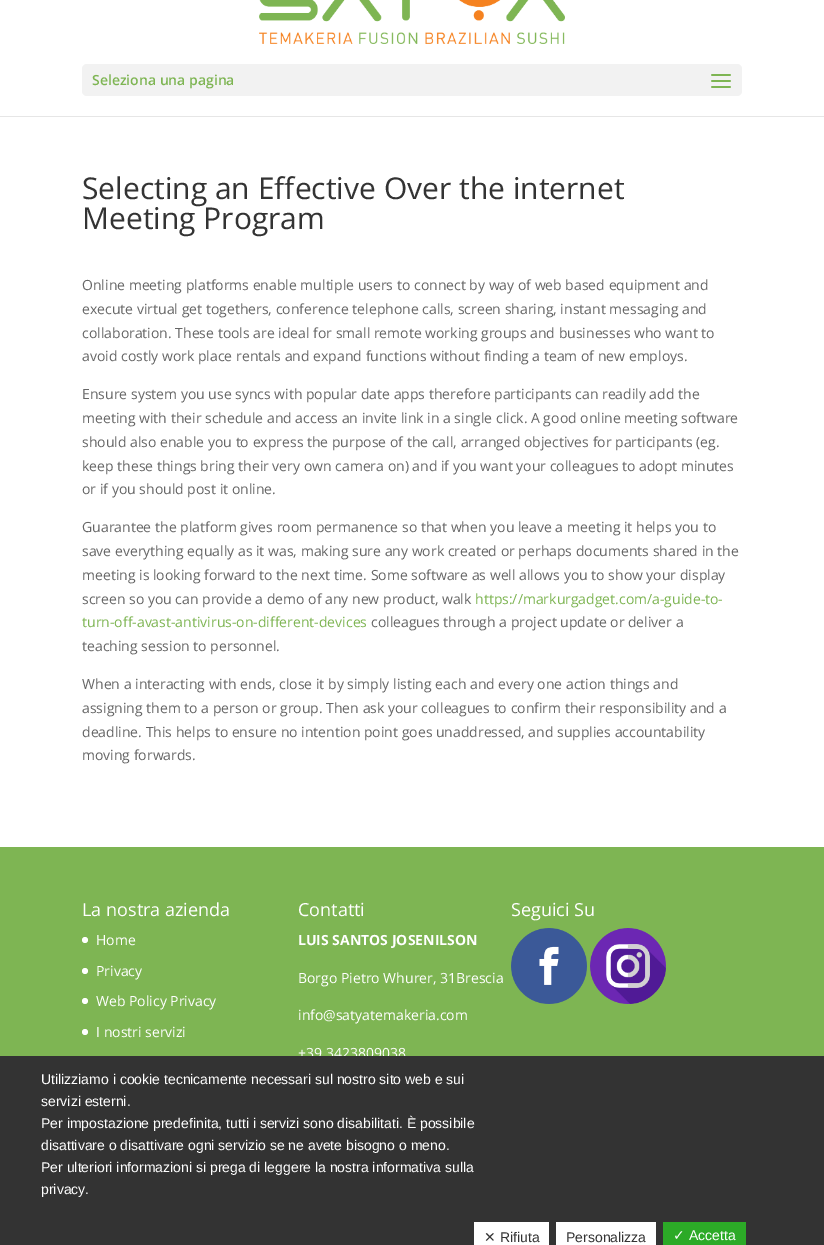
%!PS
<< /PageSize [824 1245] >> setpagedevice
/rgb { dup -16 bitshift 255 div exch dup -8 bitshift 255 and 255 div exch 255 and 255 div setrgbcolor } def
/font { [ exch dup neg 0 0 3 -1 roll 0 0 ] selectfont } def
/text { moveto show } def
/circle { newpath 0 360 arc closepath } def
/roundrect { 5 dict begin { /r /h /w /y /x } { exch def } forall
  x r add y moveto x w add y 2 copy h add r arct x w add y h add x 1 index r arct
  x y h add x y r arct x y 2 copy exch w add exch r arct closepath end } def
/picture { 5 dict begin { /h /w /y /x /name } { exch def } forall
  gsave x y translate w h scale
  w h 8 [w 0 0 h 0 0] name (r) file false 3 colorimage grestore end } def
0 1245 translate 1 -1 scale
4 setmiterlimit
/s1 { /OpenSans-SemiBold 14 font 16#7EB553 rgb } def
/s2 { /OpenSans-Regular 30 font 16#333333 rgb } def
/s3 { /OpenSans-Regular 14 font 16#666666 rgb } def
/s4 { /OpenSans-Regular 14 font 16#7EB553 rgb } def
/s5 { /OpenSans-Regular 18 font 16#FFFFFF rgb } def
/s6 { /OpenSans-Regular 14 font 16#FFFFFF rgb } def
/s7 { /OpenSans-Bold 14 font 16#FFFFFF rgb } def
/s8 { /LiberationSans-Regular 14 font 16#FFFFFF rgb } def
/s9 { /DejaVuSans-Regular 14 font 16#333333 rgb } def
/s10 { /LiberationSans-Regular 14 font 16#333333 rgb } def
/s11 { /DejaVuSans-Regular 14 font 16#FFFFFF rgb } def
16#FFFFFF rgb
0 0 824 1245 rectfill
16#E6E6E6 rgb
0 116 824 1 rectfill
(pic1.raw) 259 0 306 44 picture
16#F2F2F2 rgb
82 64 660 32 5 roundrect fill
s1
(Seleziona una pagina) 92 85 text
(pic2.raw) 711 74 20 14 picture
s2
(Selecting an Effective Over the internet) 82 199 text
(Meeting Program) 82 229 text
s3
(Online meeting platforms enable multiple users to connect by way of web based equipment and) 82 290 text
(execute virtual get togethers, conference telephone calls, screen sharing, instant messaging and) 82 314 text
(collaboration. These tools are ideal for small remote working groups and businesses who want to) 82 338 text
(avoid costly work place rentals and expand functions without finding a team of new employs.) 82 361 text
(Ensure system you use syncs with popular date apps therefore participants can readily add the) 82 399 text
(meeting with their schedule and access an invite link in a single click. A good online meeting software) 82 423 text
(should also enable you to express the purpose of the call, arranged objectives for participants \(eg.) 82 447 text
(keep these things bring their very own camera on\) and if you want your colleagues to adopt minutes) 82 471 text
(or if you should post it online.) 82 494 text
(Guarantee the platform gives room permanence so that when you leave a meeting it helps you to) 82 532 text
(save everything equally as it was, making sure any work created or perhaps documents shared in the) 82 556 text
(meeting is looking forward to the next time. Some software as well allows you to show your display) 82 580 text
(screen so you can provide a demo of any new product, walk) 82 604 text
s4
(https://markurgadget.com/a-guide-to-) 475 604 text
(turn-off-avast-antivirus-on-different-devices) 82 627 text
s3
(colleagues through a project update or deliver a) 371 627 text
(teaching session to personnel.) 82 651 text
(When a interacting with ends, close it by simply listing each and every one action things and) 82 689 text
(assigning them to a person or group. Then ask your colleagues to confirm their responsibility and a) 82 713 text
(deadline. This helps to ensure no intention point goes unaddressed, and supplies accountability) 82 737 text
(moving forwards.) 82 760 text
16#7EB553 rgb
0 847 824 209 rectfill
s5
(La nostra azienda) 82 916 text
85 940 3 circle fill
s6
(Home) 96 945 text
85 971 3 circle fill
(Privacy) 96 976 text
85 1001 3 circle fill
(Web Policy Privacy) 96 1006 text
85 1032 3 circle fill
(I nostri servizi) 96 1037 text
s5
(Contatti) 298 916 text
s7
(LUIS SANTOS JOSENILSON) 298 945 text
s6
(Borgo Pietro Whurer, 31Brescia) 298 983 text
(info@satyatemakeria.com) 298 1020 text
(+39 3423809038) 298 1058 text
s5
(Seguici Su) 511 916 text
(pic3.raw) 511 928 76 76 picture
(pic4.raw) 590 928 76 76 picture
16#333333 rgb
0 1056 824 189 rectfill
s8
(Utilizziamo i cookie tecnicamente necessari sul nostro sito web e sui) 41 1084 text
(servizi esterni.) 41 1106 text
(Per impostazione predefinita, tutti i servizi sono disabilitati. È possibile) 41 1128 text
(disattivare o disattivare ogni servizio se ne avete bisogno o meno.) 41 1150 text
(Per ulteriori informazioni si prega di leggere la nostra informativa sulla) 41 1172 text
(privacy.) 41 1194 text
474 1222 75 23 rectfill
s9
(✕) 484 1242 text
s10
(Rifiuta) 500 1242 text
16#FFFFFF rgb
556 1222 100 23 rectfill
s10
(Personalizza) 566 1242 text
16#2CAA27 rgb
663 1222 83 23 rectfill
s11
(✓) 673 1240 text
s8
(Accetta) 689 1240 text
showpage
